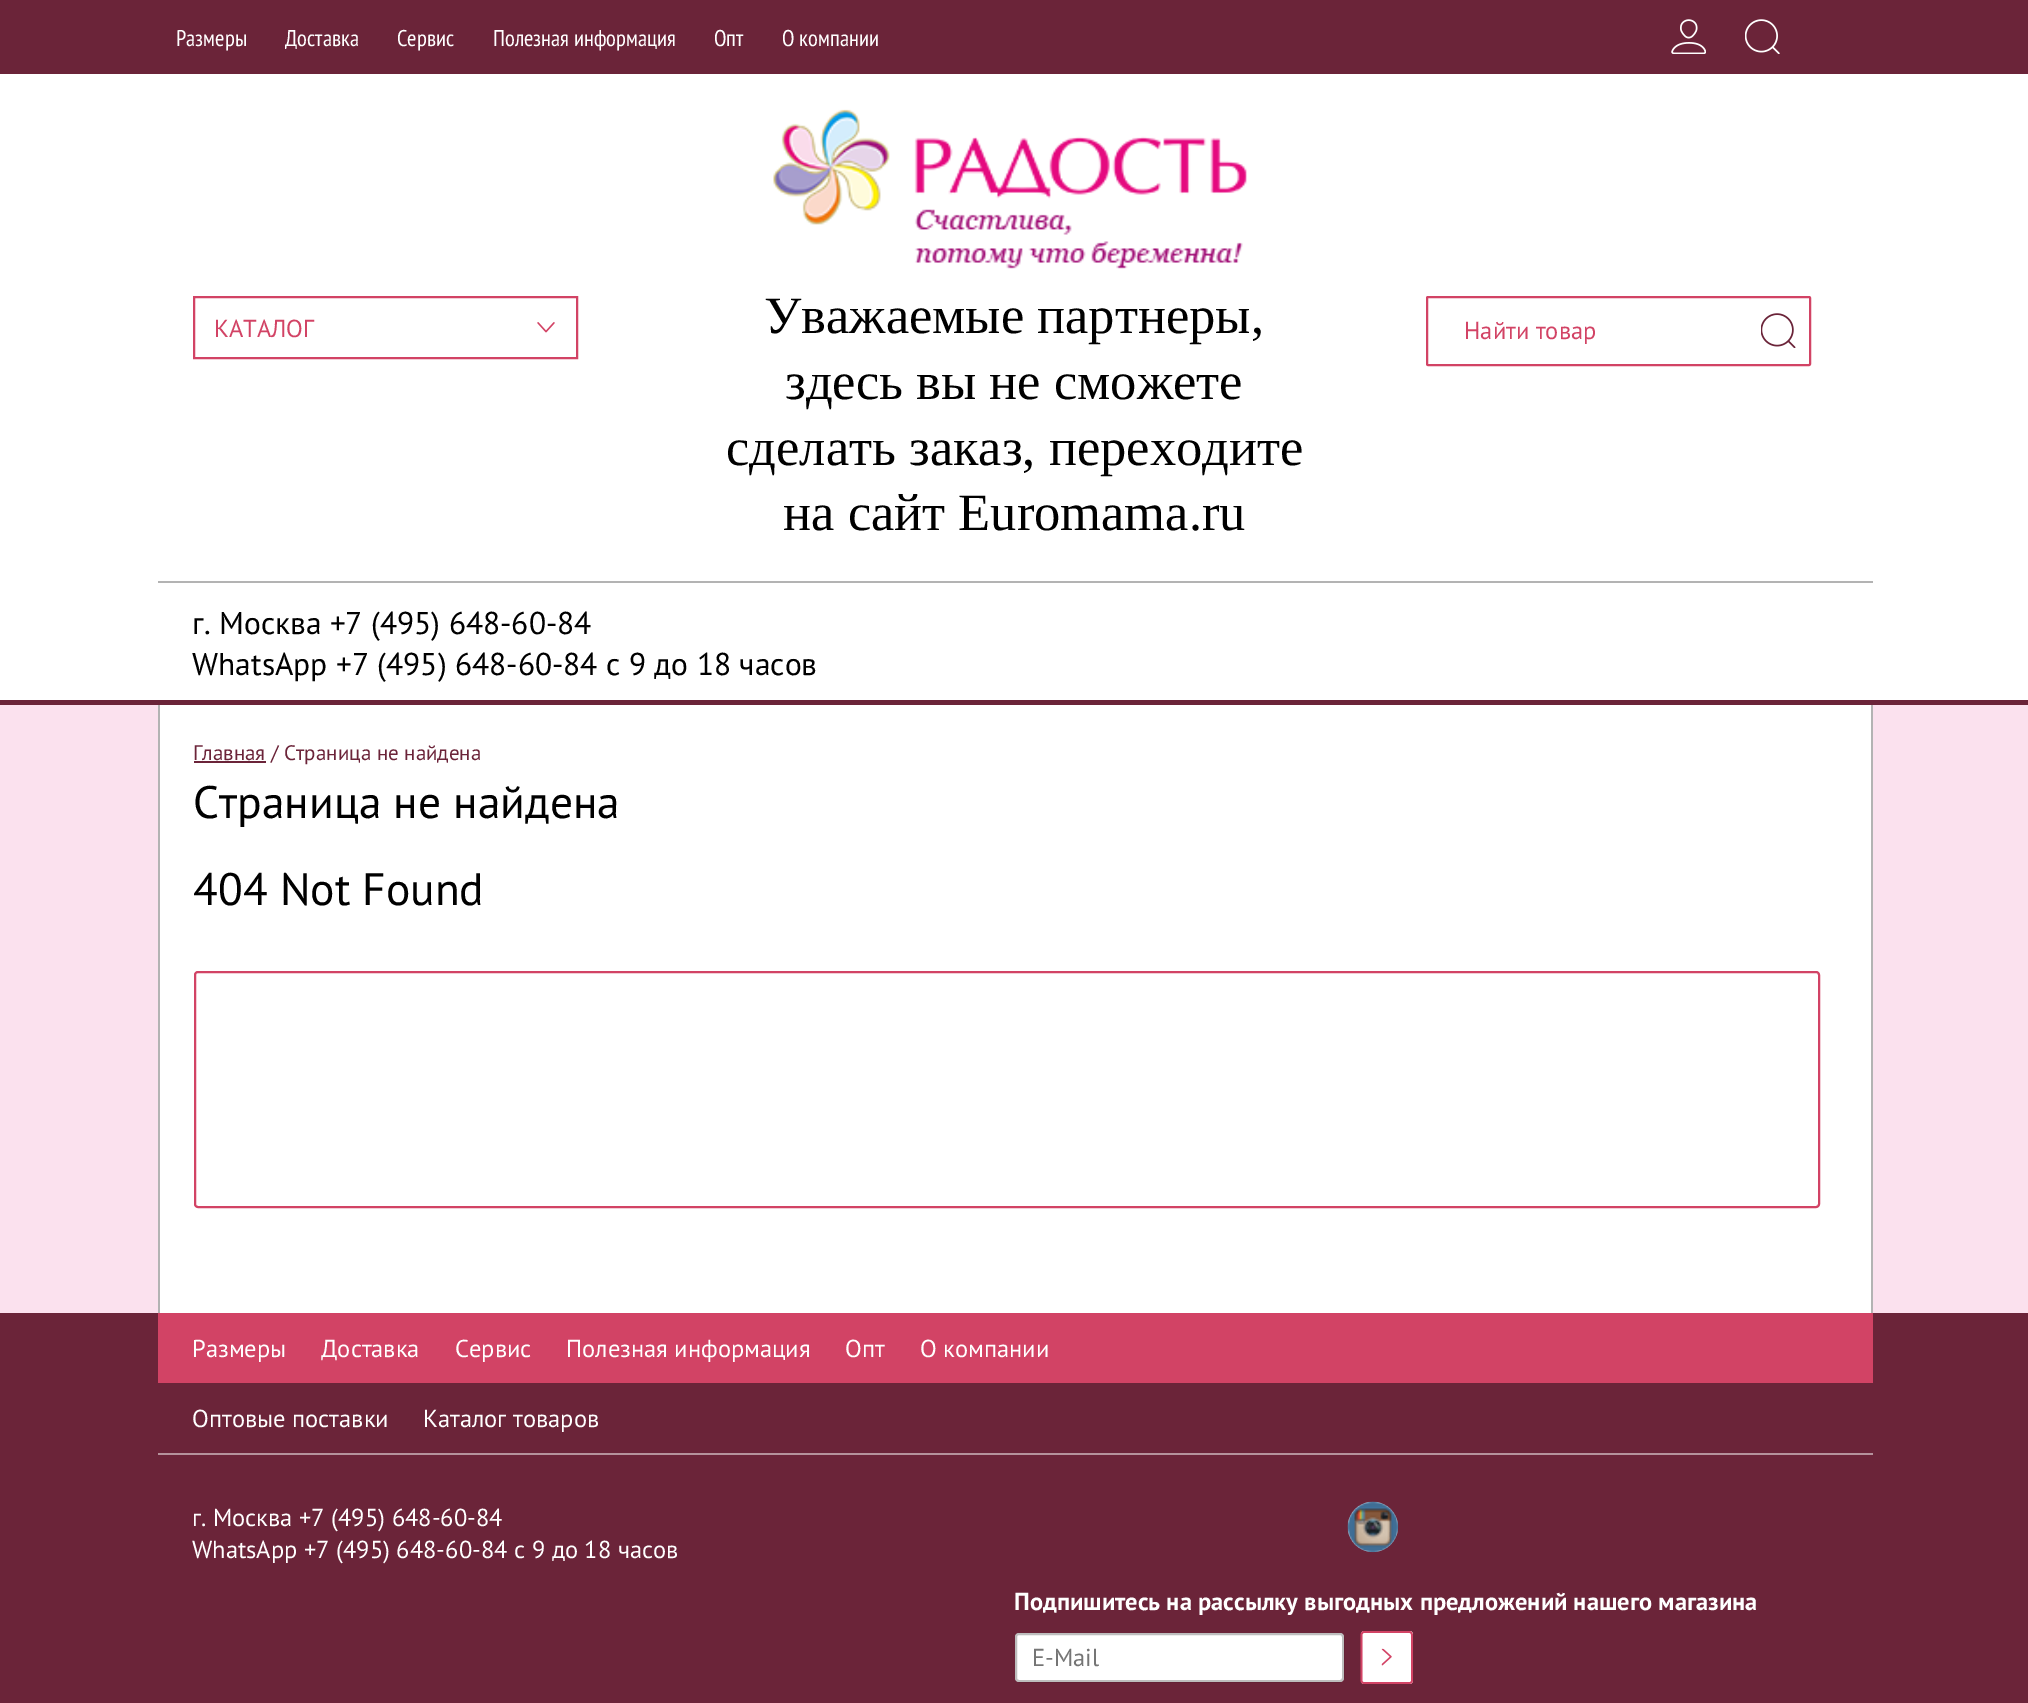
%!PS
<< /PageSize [2028 1703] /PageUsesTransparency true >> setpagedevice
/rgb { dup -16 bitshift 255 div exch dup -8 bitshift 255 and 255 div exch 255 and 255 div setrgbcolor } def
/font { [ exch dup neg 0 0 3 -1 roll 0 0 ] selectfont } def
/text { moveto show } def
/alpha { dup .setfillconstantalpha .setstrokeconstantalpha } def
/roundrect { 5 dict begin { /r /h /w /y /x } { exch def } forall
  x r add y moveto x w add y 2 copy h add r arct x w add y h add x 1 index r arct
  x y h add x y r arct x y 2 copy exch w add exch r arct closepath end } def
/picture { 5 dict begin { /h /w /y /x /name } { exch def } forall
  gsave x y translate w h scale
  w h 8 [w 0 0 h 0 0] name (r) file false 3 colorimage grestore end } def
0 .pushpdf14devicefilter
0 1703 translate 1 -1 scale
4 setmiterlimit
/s1 { /PTSansNarrow-Regular 22.75 font 16#FFFFFF rgb } def
/s2 { /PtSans-Regular 24.5 font 16#D24365 rgb } def
/s3 { /LiberationSerif-Regular 52.5 font 16#000000 rgb } def
/s4 { /PtSans-Regular 31.5 font 16#000000 rgb } def
/s5 { /PtSans-Regular 21 font 16#6B2439 rgb } def
/s6 { /PtSans-Regular 45.5 font 16#000000 rgb } def
/s7 { /PtSans-Regular 24.5 font 16#FFFFFF rgb } def
/s8 { /PtSans-Bold 24.5 font 16#FFFFFF rgb } def
/s9 { /PtSans-Regular 24.5 font 16#757575 rgb } def
16#FBE1EE rgb
0 0 2028 1703 rectfill
16#6B2439 rgb
0 0 2028 74 rectfill
s1
(Размеры) 176 46 text
(Доставка) 285 46 text
(Сервис) 397 46 text
(Полезная информация) 493 46 text
(Опт) 714 46 text
(О компании) 782 46 text
(pic1.raw) 1671 19 35 35 picture
(pic2.raw) 1745 19 35 35 picture
0 74 2028 626 rectfill
16#6B2439 rgb
0 700 2028 5 rectfill
16#D24365 rgb
2 setlinewidth
194 297 383 61 rectstroke
s2
(КАТАЛОГ) 214 337 text
(pic3.raw) 537 322 18 11 picture
(pic4.raw) 773 109 474 160 picture
s3
(Уважаемые партнеры,) 764 333 text
(здесь вы не сможете) 785 399 text
(сделать заказ, переходите) 726 465 text
(на сайт Euromama.ru) 783 530 text
16#D24365 rgb
1427 297 383 68 1 roundrect stroke
s2
(Найти товар) 1464 339 text
(pic5.raw) 1761 313 35 35 picture
16#B3B3B3 rgb
158 581 1715 2 rectfill
s4
(г. Москва +7 \(495\) 648-60-84) 192 634 text
(WhatsApp +7 \(495\) 648-60-84 c 9 до 18 часов) 192 675 text
16#FFFFFF rgb
160 705 1711 608 rectfill
16#B3B3B3 rgb
1871 705 2 608 rectfill
158 705 2 608 rectfill
16#6B2439 rgb
194 761 72 2 rectfill
s5
(Главная / Страница не найдена) 193 760 text
s6
(Страница не найдена) 193 818 text
(404 Not Found) 193 905 text
16#D24365 rgb
195 972 1624 235 3 roundrect stroke
16#6B2439 rgb
0 1313 2028 390 rectfill
16#D24365 rgb
158 1313 1715 70 rectfill
s7
(Размеры) 192 1357 text
(Доставка) 321 1357 text
(Сервис) 455 1357 text
(Полезная информация) 566 1357 text
(Опт) 845 1357 text
(О компании) 920 1357 text
16#B5929C rgb
158 1453 1715 2 rectfill
s7
(Оптовые поставки) 192 1427 text
(Каталог товаров) 423 1427 text
(г. Москва +7 \(495\) 648-60-84) 192 1526 text
(WhatsApp +7 \(495\) 648-60-84 c 9 до 18 часов) 192 1558 text
(pic6.raw) 1347 1501 52 52 picture
s8
(Подпишитесь на рассылку выгодных предложений нашего магазина) 1014 1610 text
1015 1633 329 49 4 roundrect fill
0.26 alpha
16#000000 rgb
1016 1634 327 47 3 roundrect stroke
1 alpha
s9
(E-Mail) 1032 1666 text
16#FFFFFF rgb
1361 1680 moveto 1361 1635 lineto 1361 1633 1362 1631 1364 1631 curveto 1410 1631 lineto 1412 1631 1413 1633 1413 1635 curveto 1413 1680 lineto 1413 1682 1412 1684 1410 1684 curveto 1364 1684 lineto 1362 1684 1361 1682 1361 1680 curveto closepath fill
(pic7.raw) 1381 1648 11 18 picture
16#D24365 rgb
1.8 setlinewidth
1361.5 1680.5 moveto 1361.5 1635 lineto 1361.5 1633.5 1362.5 1632 1364 1632 curveto 1409.5 1632 lineto 1411 1632 1412 1633.5 1412 1635 curveto 1412 1680.5 lineto 1412 1682 1411 1683 1409.5 1683 curveto 1364 1683 lineto 1362.5 1683 1361.5 1682 1361.5 1680.5 curveto closepath stroke
.poppdf14devicefilter showpage
